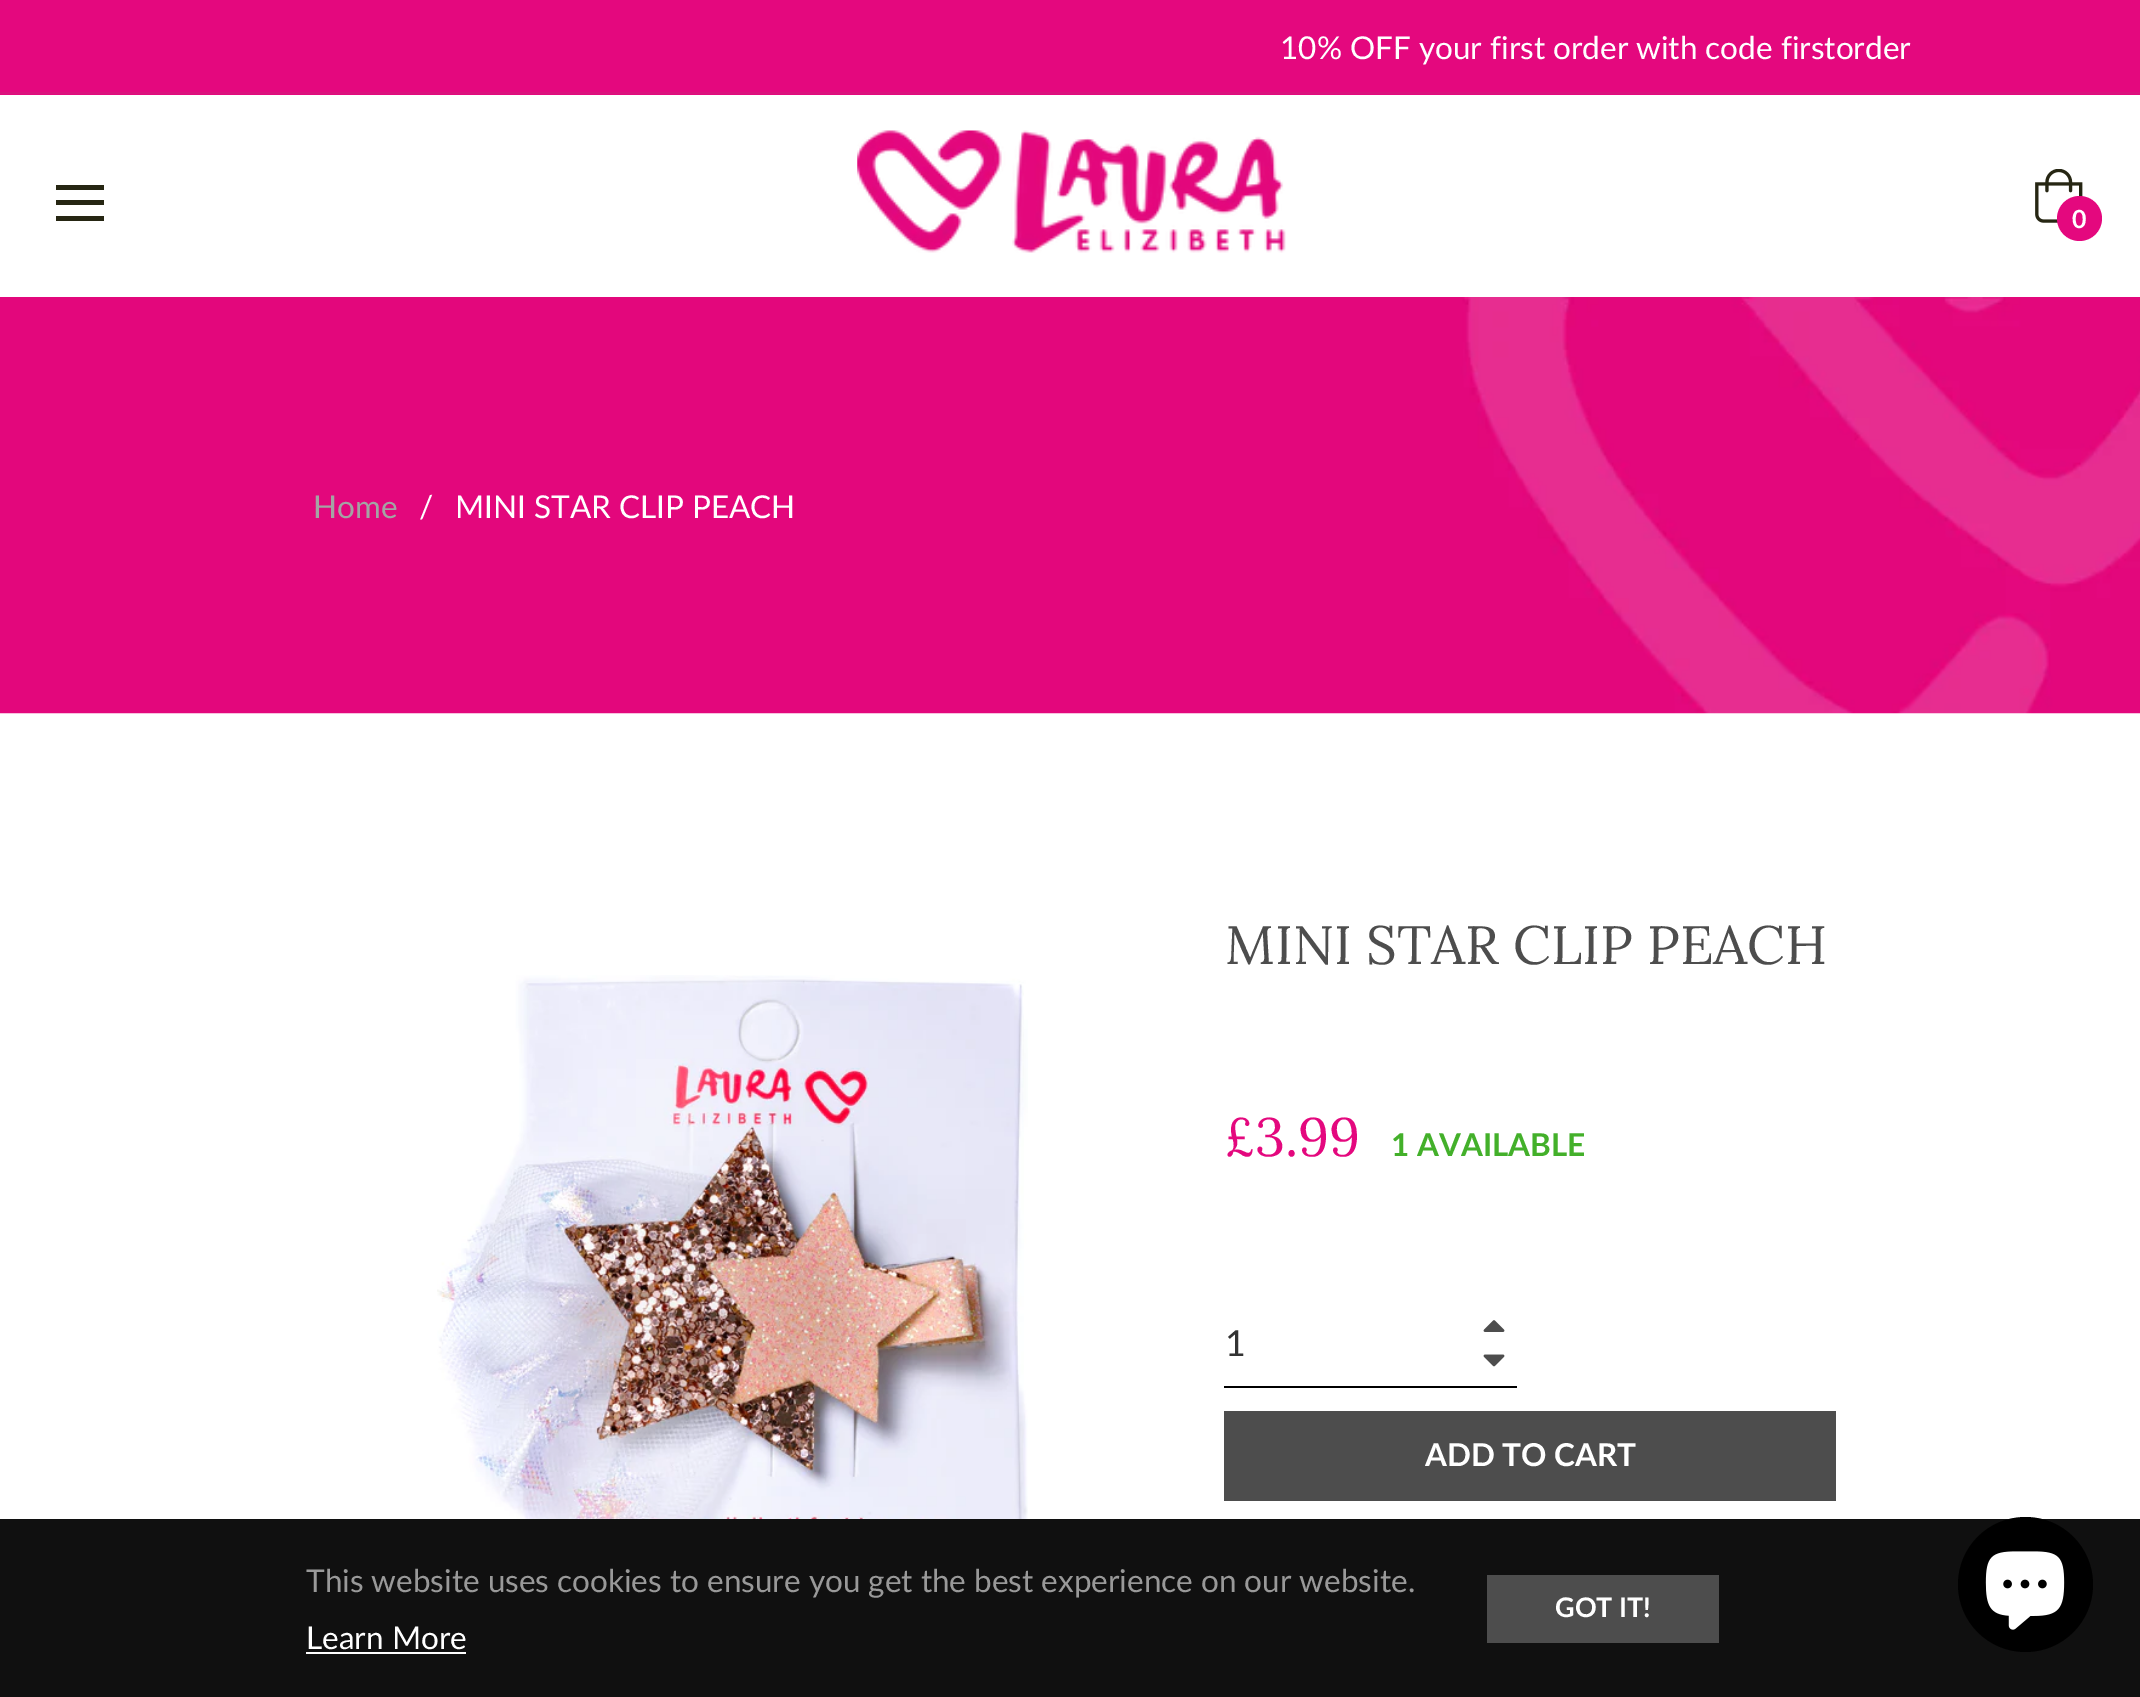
%!PS
<< /PageSize [2140 1697] >> setpagedevice
/rgb { dup -16 bitshift 255 div exch dup -8 bitshift 255 and 255 div exch 255 and 255 div setrgbcolor } def
/font { [ exch dup neg 0 0 3 -1 roll 0 0 ] selectfont } def
/text { moveto show } def
/circle { newpath 0 360 arc closepath } def
/picture { 5 dict begin { /h /w /y /x /name } { exch def } forall
  gsave x y translate w h scale
  w h 8 [w 0 0 h 0 0] name (r) file false 3 colorimage grestore end } def
0 1697 translate 1 -1 scale
4 setmiterlimit
/s1 { /Lato-Regular 31.5 font 16#FFFFFF rgb } def
/s2 { /Lato-Bold 25 font 16#FFFFFF rgb } def
/s3 { /Lato-Regular 31.5 font 16#A4A4A4 rgb } def
/s4 { /Lora-Regular 54 font 16#4D4D4D rgb } def
/s5 { /Lora-Regular 54 font 16#E4087E rgb } def
/s6 { /Lato-Bold 31.5 font 16#43B02A rgb } def
/s7 { /Lato-Regular 36 font 16#333333 rgb } def
/s8 { /Lato-Bold 31.5 font 16#FFFFFF rgb } def
/s9 { /Lato-Regular 31.5 font 16#999999 rgb } def
/s10 { /Lato-Bold 27 font 16#FFFFFF rgb } def
16#FFFFFF rgb
0 0 2140 1697 rectfill
16#E4087E rgb
0 0 2140 95 rectfill
16#D9137D rgb
0 92 2140 2 rectfill
s1
(10% OFF your first order with code firstorder) 1280 59 text
16#262613 rgb
56 185 48 5 rectfill
56 200 48 5 rectfill
56 216 48 5 rectfill
(pic1.raw) 857 130 429 123 picture
(pic2.raw) 2035 169 48 54 picture
16#E4087E rgb
2079.5 218.5 22.5 circle fill
s2
(0) 2072 228 text
(pic3.raw) 0 297 2140 417 picture
s3
(Home) 313 518 text
s1
(/) 419 518 text
(MINI STAR CLIP PEACH) 455 518 text
(pic4.raw) 437 975 591 544 picture
s4
(MINI STAR CLIP PEACH) 1225 964 text
s5
(£3.99) 1225 1156 text
s6
(1 AVAILABLE) 1391 1156 text
(pic5.raw) 1483 1320 22 12 picture
16#000000 rgb
1224 1386 293 2 rectfill
s7
(1) 1225 1356 text
(pic6.raw) 1483 1354 22 13 picture
16#4D4D4D rgb
1224 1411 612 90 rectfill
s8
(ADD TO CART) 1425 1466 text
16#101010 rgb
0 1519 2140 178 rectfill
s9
(This website uses cookies to ensure you get the best experience on our website.) 306 1592 text
s1
(Learn More) 306 1649 text
306 1652 160 2 rectfill
16#4D4D4D rgb
1487 1575 232 68 rectfill
s10
(GOT IT!) 1555 1617 text
16#000000 rgb
2025.5 1584.5 67.5 circle fill
(pic7.raw) 1985 1551 80 79 picture
showpage
